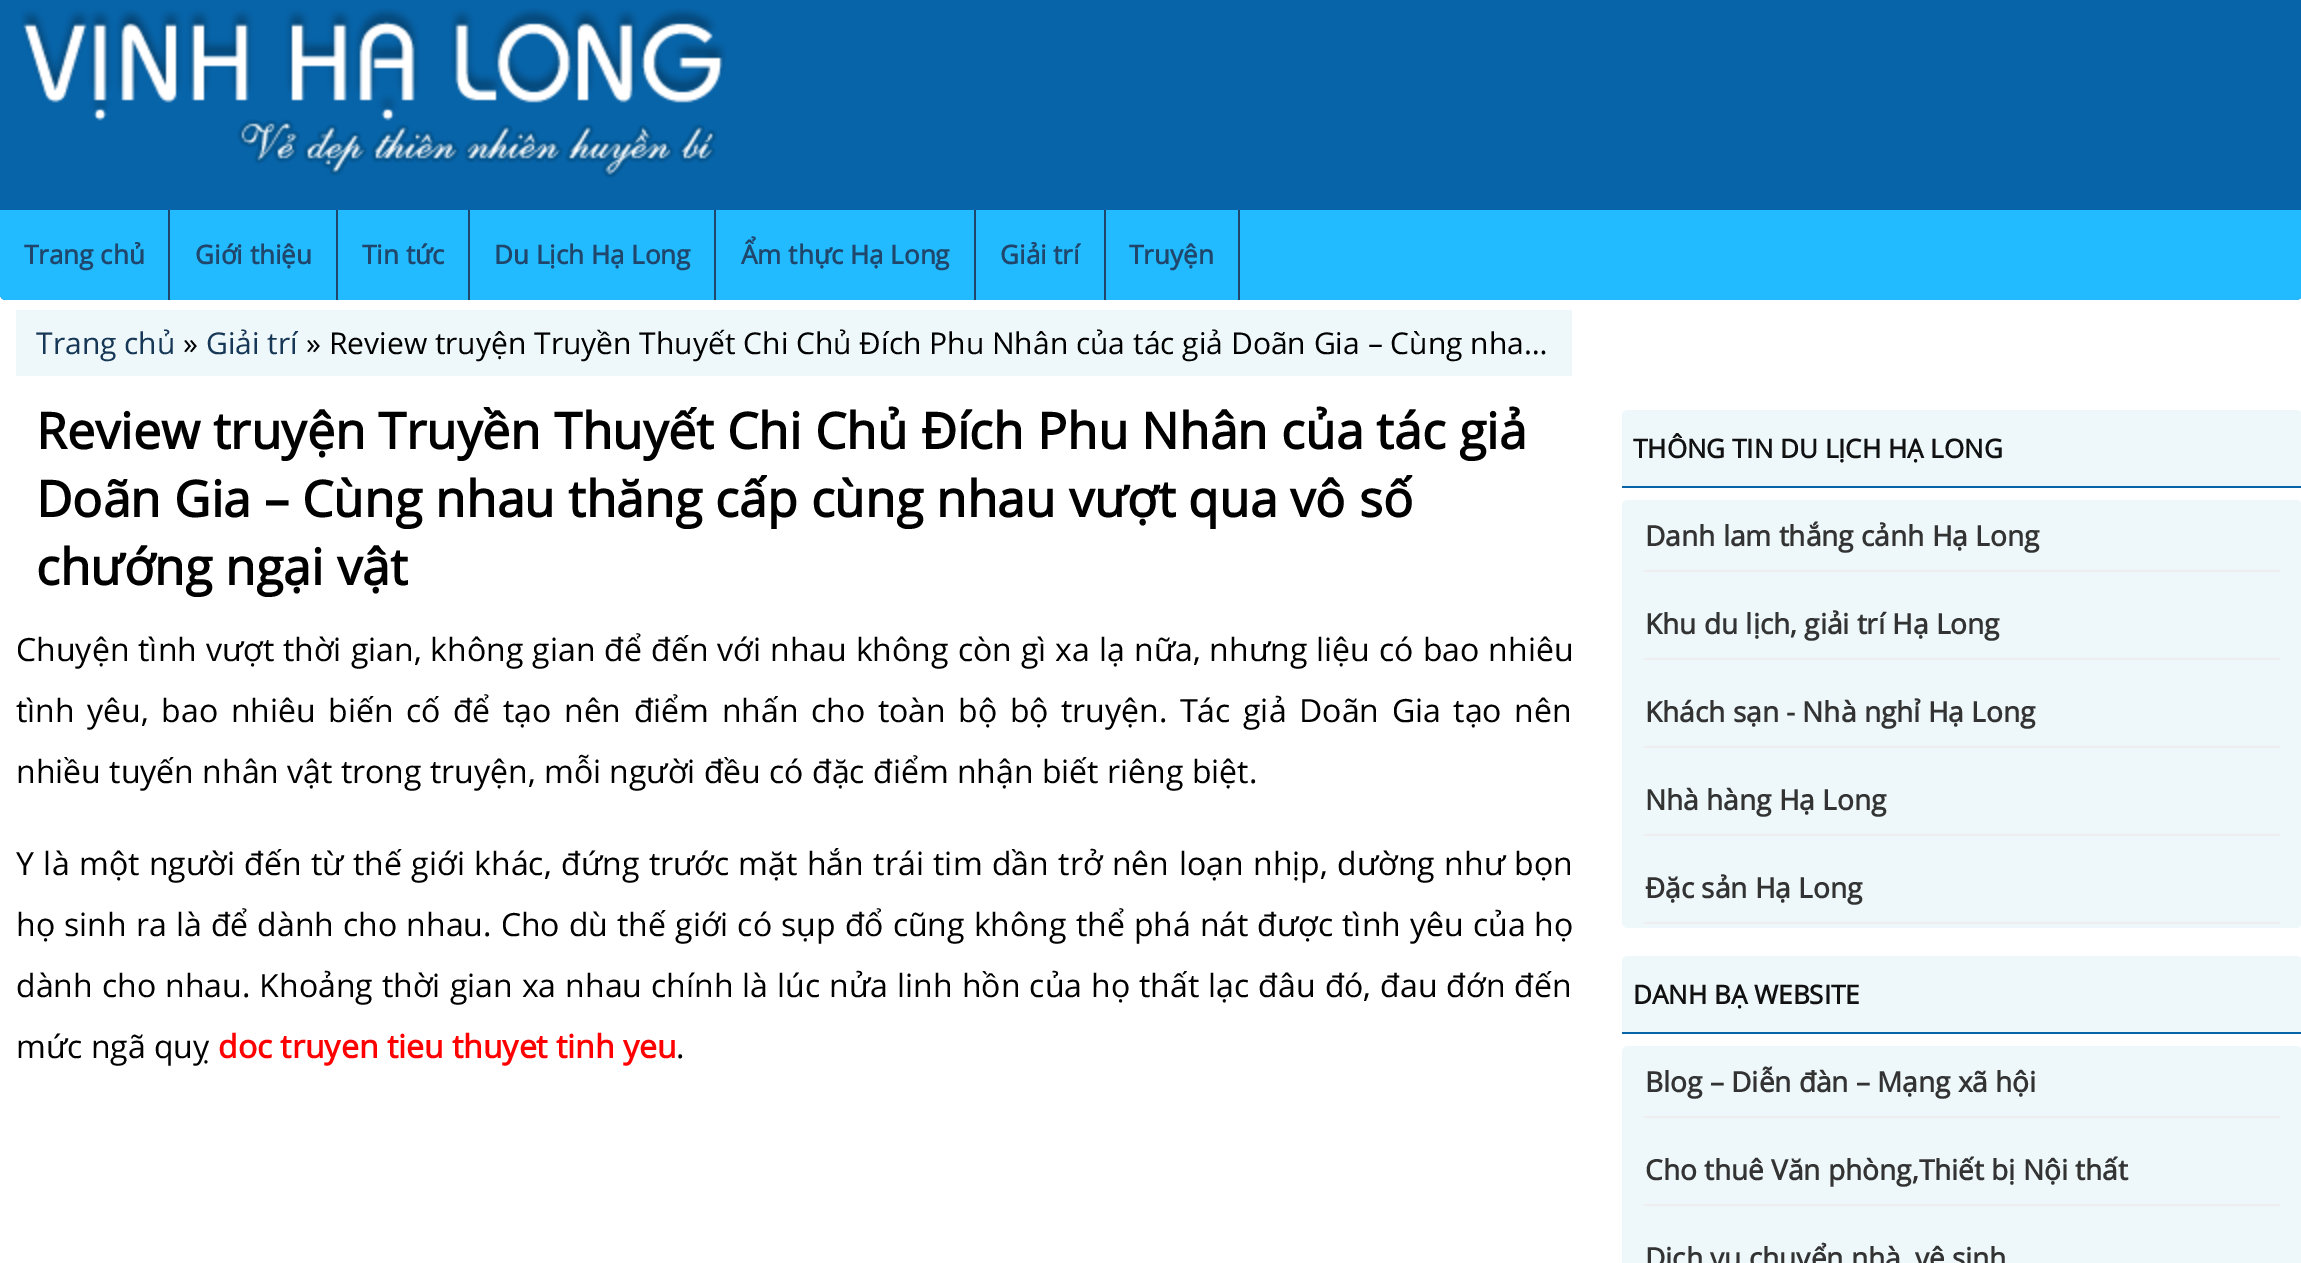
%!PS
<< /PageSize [2301 1263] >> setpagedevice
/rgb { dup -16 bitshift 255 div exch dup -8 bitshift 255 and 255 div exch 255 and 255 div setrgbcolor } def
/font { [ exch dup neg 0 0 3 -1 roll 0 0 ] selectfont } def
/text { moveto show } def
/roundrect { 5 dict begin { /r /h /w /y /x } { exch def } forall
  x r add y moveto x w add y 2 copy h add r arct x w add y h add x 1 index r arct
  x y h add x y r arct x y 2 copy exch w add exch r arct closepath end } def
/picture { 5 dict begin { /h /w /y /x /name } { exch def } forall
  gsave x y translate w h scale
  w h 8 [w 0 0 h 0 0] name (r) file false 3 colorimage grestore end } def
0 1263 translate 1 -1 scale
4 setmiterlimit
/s1 { /OpenSans-Bold 26 font 16#20466B rgb } def
/s2 { /OpenSans-Regular 30 font 16#163756 rgb } def
/s3 { /OpenSans-Regular 30 font 16#000000 rgb } def
/s4 { /OpenSans-Bold 50 font 16#000000 rgb } def
/s5 { /OpenSans-Regular 32 font 16#000000 rgb } def
/s6 { /OpenSans-Bold 32 font 16#FF0000 rgb } def
/s7 { /OpenSans-Bold 26 font 16#111111 rgb } def
/s8 { /OpenSans-Bold 28 font 16#333333 rgb } def
16#FFFFFF rgb
0 0 2301 1263 rectfill
16#0764A9 rgb
0 0 moveto 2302 0 lineto 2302 294 lineto 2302 297.5 2299.5 300 2296 300 curveto 6 300 lineto 2.5 300 0 297.5 0 294 curveto closepath fill
(pic1.raw) 21 8 705 170 picture
16#22BBFF rgb
0 210 moveto 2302 210 lineto 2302 294 lineto 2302 297.5 2299.5 300 2296 300 curveto 6 300 lineto 2.5 300 0 297.5 0 294 curveto closepath fill
16#20466B rgb
168 210 2 90 rectfill
s1
(Trang chủ) 24 264 text
336 210 2 90 rectfill
(Giới thiệu) 195 264 text
468 210 2 90 rectfill
(Tin tức) 362 264 text
714 210 2 90 rectfill
(Du Lịch Hạ Long) 494 264 text
974 210 2 90 rectfill
(Ẩm thực Hạ Long) 741 264 text
1104 210 2 90 rectfill
(Giải trí) 1000 264 text
1238 210 2 90 rectfill
(Truyện) 1129 264 text
16#EEF8FA rgb
16 310 1556 66 rectfill
s2
(Trang chủ) 36 354 text
s3
(») 183 354 text
s2
(Giải trí) 206 354 text
s3
(» Review truyện Truyền Thuyết Chi Chủ Đích Phu Nhân của tác giả Doãn Gia – Cùng nha…) 306 354 text
s4
(Review truyện Truyền Thuyết Chi Chủ Đích Phu Nhân của tác giả) 36 449 text
(Doãn Gia – Cùng nhau thăng cấp cùng nhau vượt qua vô số) 36 517 text
(chướng ngại vật) 36 585 text
/OpenSans-Regular 32 font
16 661 moveto 0.7 0 32 (Chuyện tình vượt thời gian, không gian để đến với nhau không còn gì xa lạ nữa, nhưng liệu có bao nhiêu) widthshow
16 722 moveto 4.2 0 32 (tình yêu, bao nhiêu biến cố để tạo nên điểm nhấn cho toàn bộ bộ truyện. Tác giả Doãn Gia tạo nên) widthshow
(nhiều tuyến nhân vật trong truyện, mỗi người đều có đặc điểm nhận biết riêng biệt.) 16 783 text
16 875 moveto 1.2 0 32 (Y là một người đến từ thế giới khác, đứng trước mặt hắn trái tim dần trở nên loạn nhịp, dường như bọn) widthshow
16 936 moveto 0.75 0 32 (họ sinh ra là để dành cho nhau. Cho dù thế giới có sụp đổ cũng không thể phá nát được tình yêu của họ) widthshow
16 997 moveto 0.75 0 32 (dành cho nhau. Khoảng thời gian xa nhau chính là lúc nửa linh hồn của họ thất lạc đâu đó, đau đớn đến) widthshow
(mức ngã quỵ) 16 1058 text
s6
(doc truyen tieu thuyet tinh yeu) 218 1058 text
s5
(.) 676 1058 text
16#EEF8FA rgb
1628 410 moveto 2296 410 lineto 2299.5 410 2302 412.5 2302 416 curveto 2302 488 lineto 1622 488 lineto 1622 416 lineto 1622 412.5 1624.5 410 1628 410 curveto closepath fill
16#0764A9 rgb
1622 486 679 2 rectfill
s7
(THÔNG TIN DU LỊCH HẠ LONG) 1633 458 text
16#EEF8FA rgb
1622 500 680 428 6 roundrect fill
16#EEEEEE rgb
1644 570 636 2 rectfill
s8
(Danh lam thắng cảnh Hạ Long) 1645 546 text
16#EEEEEE rgb
1644 658 636 2 rectfill
s8
(Khu du lịch, giải trí Hạ Long) 1645 634 text
16#EEEEEE rgb
1644 746 636 2 rectfill
s8
(Khách sạn - Nhà nghỉ Hạ Long) 1645 722 text
16#EEEEEE rgb
1644 834 636 2 rectfill
s8
(Nhà hàng Hạ Long) 1645 810 text
16#EEEEEE rgb
1644 922 636 2 rectfill
s8
(Đặc sản Hạ Long) 1645 898 text
16#EEF8FA rgb
1628 956 moveto 2296 956 lineto 2299.5 956 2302 958.5 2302 962 curveto 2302 1034 lineto 1622 1034 lineto 1622 962 lineto 1622 958.5 1624.5 956 1628 956 curveto closepath fill
16#0764A9 rgb
1622 1032 679 2 rectfill
s7
(DANH BẠ WEBSITE) 1633 1004 text
16#EEF8FA rgb
1622 1046 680 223 6 roundrect fill
16#EEEEEE rgb
1644 1116 636 2 rectfill
s8
(Blog – Diễn đàn – Mạng xã hội) 1645 1092 text
16#EEEEEE rgb
1644 1204 636 2 rectfill
s8
(Cho thuê Văn phòng,Thiết bị Nội thất) 1645 1180 text
(Dịch vụ chuyển nhà, vệ sinh) 1645 1268 text
showpage
